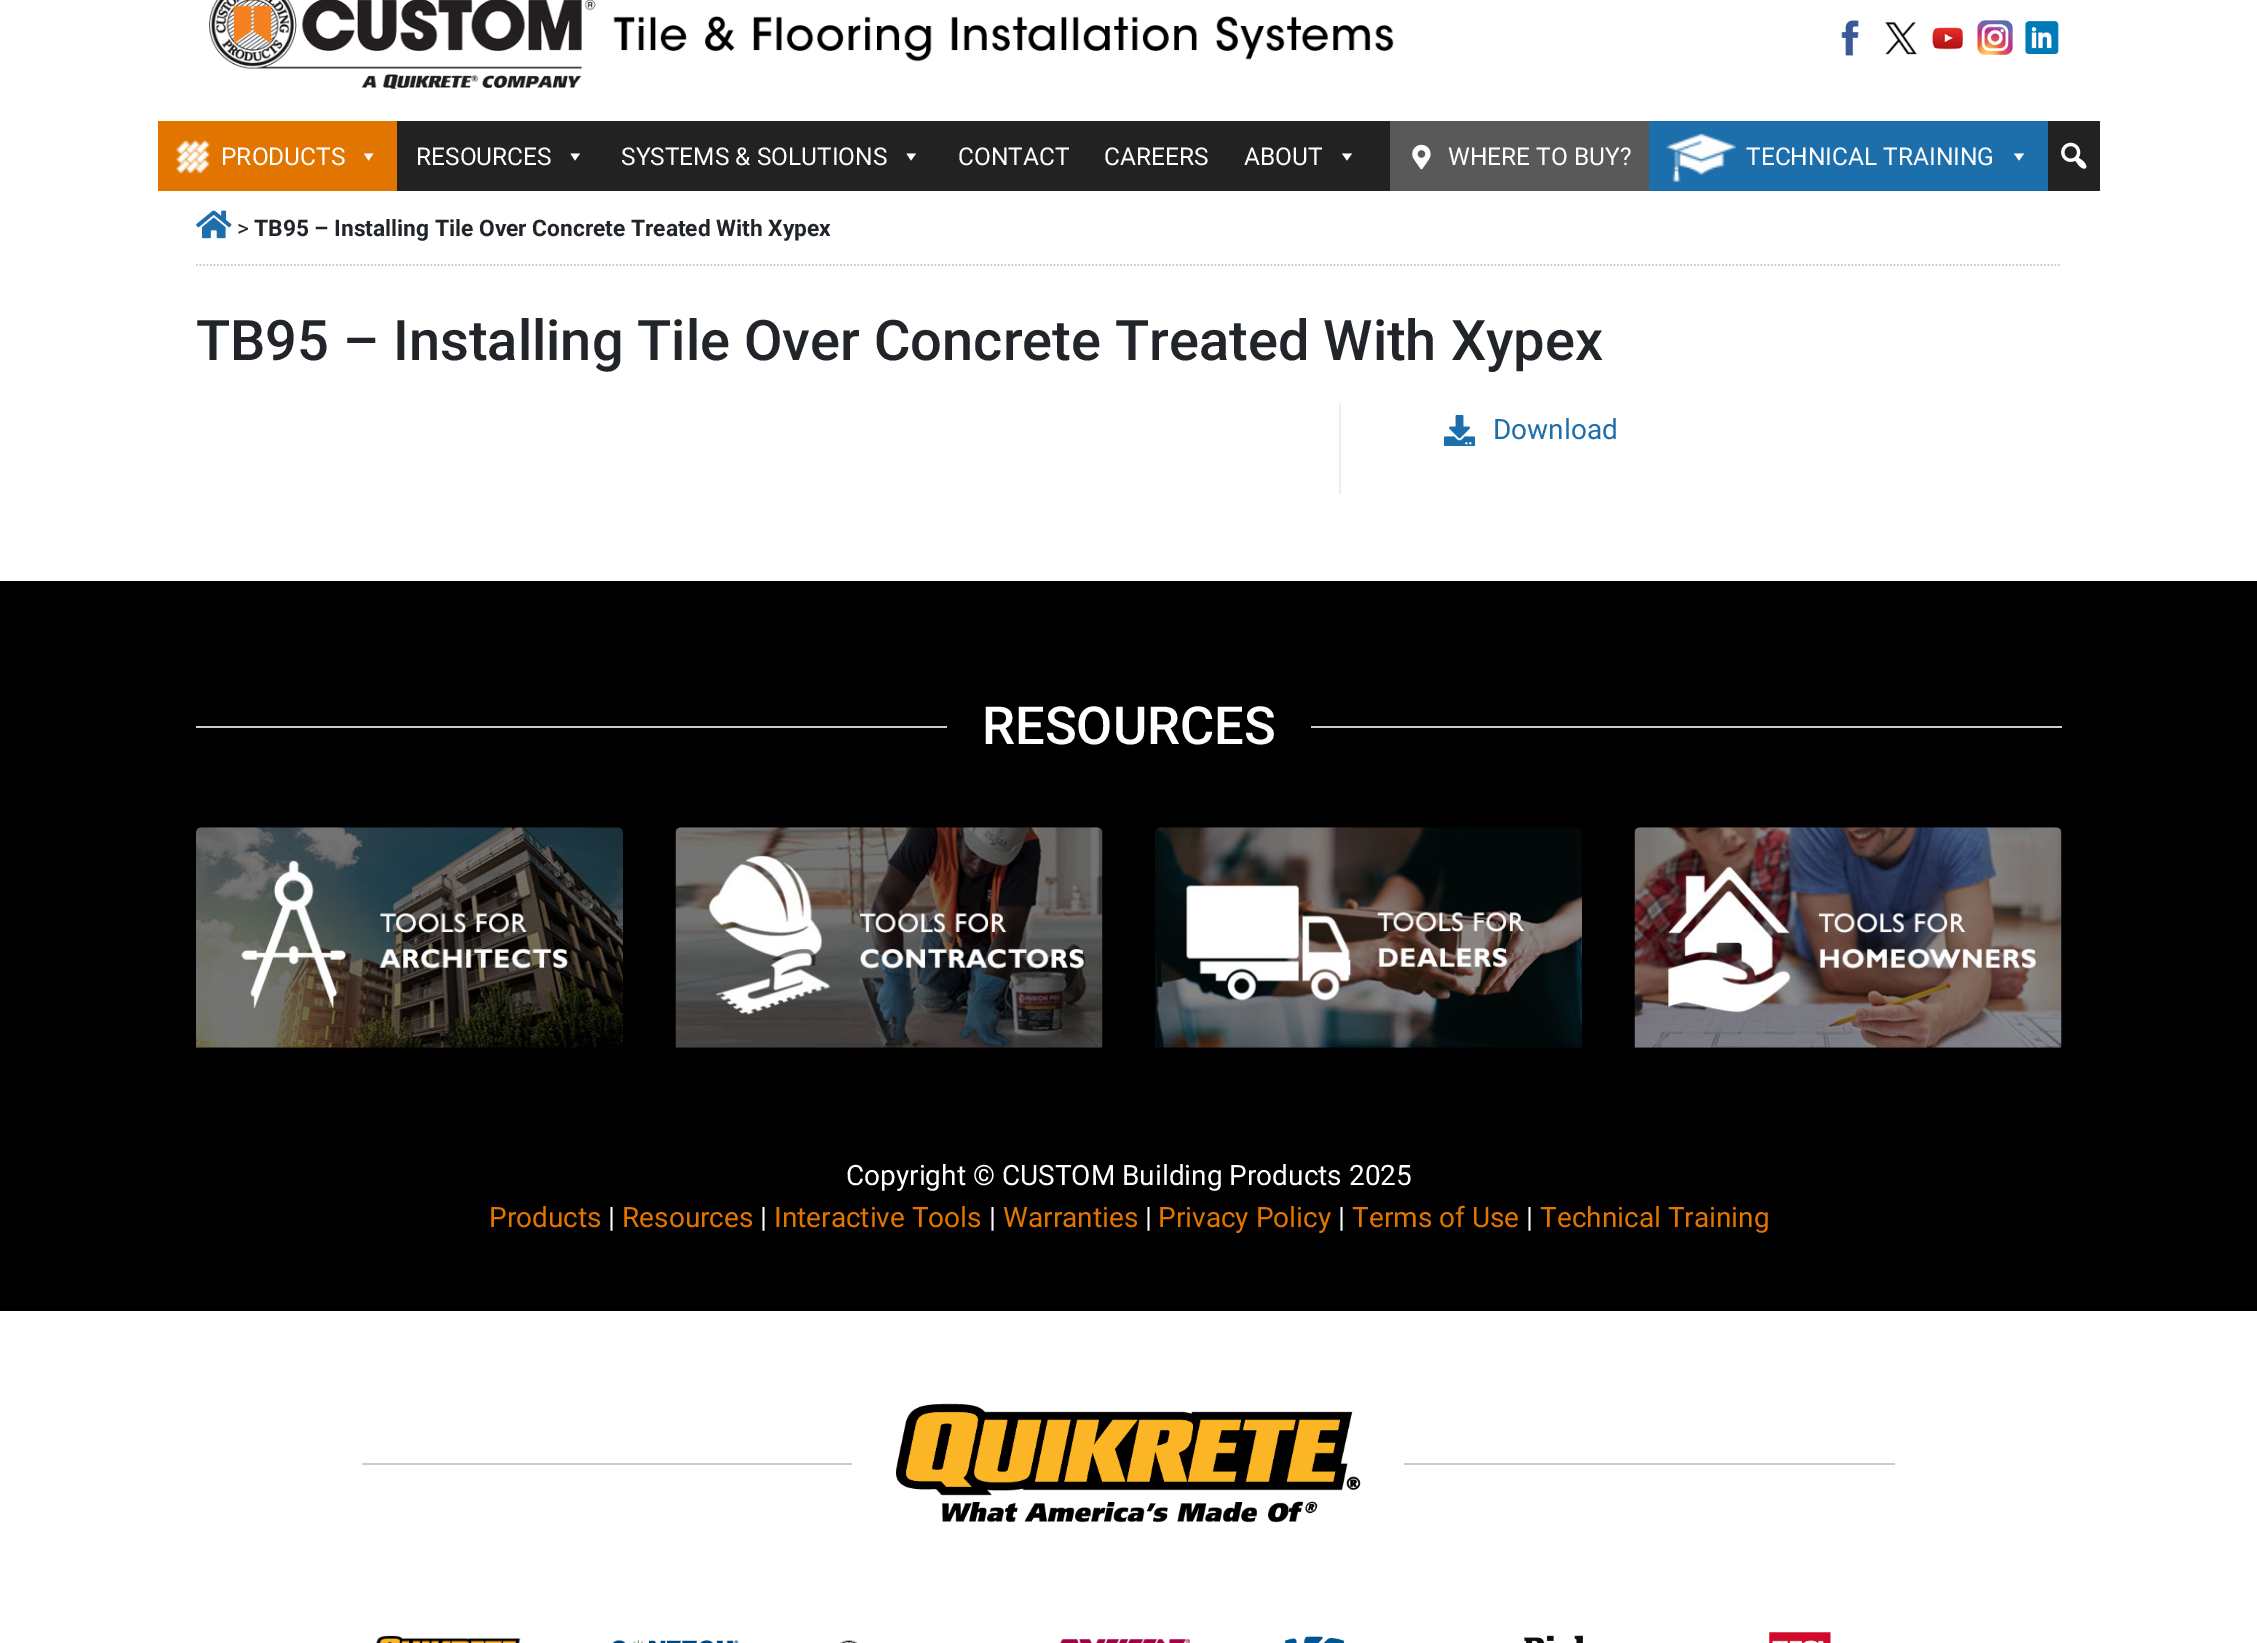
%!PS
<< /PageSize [2257 1643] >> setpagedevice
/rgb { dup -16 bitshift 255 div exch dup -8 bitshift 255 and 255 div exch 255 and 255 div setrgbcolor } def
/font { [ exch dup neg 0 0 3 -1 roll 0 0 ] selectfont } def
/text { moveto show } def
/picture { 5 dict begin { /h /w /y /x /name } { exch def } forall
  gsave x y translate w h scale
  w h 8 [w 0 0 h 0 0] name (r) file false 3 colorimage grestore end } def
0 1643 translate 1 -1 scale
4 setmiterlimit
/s1 { /Roboto-Regular 24.5 font 16#FFFFFF rgb } def
/s2 { /Roboto-Regular 22.75 font 16#212529 rgb } def
/s3 { /Roboto-Bold 22.75 font 16#212529 rgb } def
/s4 { /Roboto-Medium 56 font 16#212529 rgb } def
/s5 { /Roboto-Regular 28 font 16#1D6FAC rgb } def
/s6 { /Roboto-Medium 52.5 font 16#FFFFFF rgb } def
/s7 { /Roboto-Regular 28 font 16#FFFFFF rgb } def
/s8 { /Roboto-Regular 28 font 16#E17500 rgb } def
16#FFFFFF rgb
0 0 2257 1643 rectfill
(pic1.raw) 209 0 387 89 picture
(pic2.raw) 613 16 781 46 picture
(pic3.raw) 1841 20 18 36 picture
(pic4.raw) 1885 21 32 34 picture
(pic5.raw) 1932 27 31 23 picture
(pic6.raw) 1977 20 36 35 picture
(pic7.raw) 2025 21 34 33 picture
16#222222 rgb
397 121 1703 70 rectfill
16#E17500 rgb
158 121 239 70 rectfill
(pic8.raw) 176 139 34 35 picture
s1
(PRODUCTS) 221 165 text
373.5 153.5 moveto 368.5 160.5 lineto 364 153.5 lineto closepath fill
(RESOURCES) 416 165 text
580 153.5 moveto 575 160.5 lineto 570.5 153.5 lineto closepath fill
(SYSTEMS & SOLUTIONS) 621 165 text
916 153.5 moveto 911 160.5 lineto 906.5 153.5 lineto closepath fill
(CONTACT) 958 165 text
(CAREERS) 1104 165 text
(ABOUT) 1244 165 text
1352 153.5 moveto 1347 160.5 lineto 1342 153.5 lineto closepath fill
16#5A5959 rgb
1390 121 259 70 rectfill
(pic9.raw) 1412 144 19 26 picture
s1
(WHERE TO BUY?) 1448 165 text
16#1D6FAC rgb
1649 121 399 70 rectfill
(pic10.raw) 1666 133 70 49 picture
s1
(TECHNICAL TRAINING) 1746 165 text
2024 153.5 moveto 2019 160.5 lineto 2014 153.5 lineto closepath fill
(pic11.raw) 2061 142 26 27 picture
16#CCCCCC rgb
1.8 setlinewidth
[1.75 1.75] 0 setdash
196 265 moveto 2061.5 265 lineto stroke
(pic12.raw) 196 210 36 29 picture
s2
(>) 237 236 text
s3
(TB95 – Installing Tile Over Concrete Treated With Xypex) 254 236 text
s4
(TB95 – Installing Tile Over Concrete Treated With Xypex) 196 360 text
16#EEEEEE rgb
1339 403 2 91 rectfill
(pic13.raw) 1444 415 31 31 picture
s5
(Download) 1493 439 text
16#000000 rgb
0 581 2257 730 rectfill
16#CCCCCC rgb
196 726 751 2 rectfill
s6
(RESOURCES) 982 744 text
16#CCCCCC rgb
1311 726 751 2 rectfill
(pic14.raw) 196 827 427 221 picture
(pic15.raw) 675 827 428 221 picture
(pic16.raw) 1155 827 427 221 picture
(pic17.raw) 1634 827 428 221 picture
s7
(Copyright © CUSTOM Building Products 2025) 846 1185 text
s8
(Products) 489 1227 text
s7
(|) 608 1227 text
s8
(Resources) 622 1227 text
s7
(|) 760 1227 text
s8
(Interactive Tools) 774 1227 text
s7
(|) 989 1227 text
s8
(Warranties) 1003 1227 text
s7
(|) 1145 1227 text
s8
(Privacy Policy) 1158 1227 text
s7
(|) 1338 1227 text
s8
(Terms of Use) 1352 1227 text
s7
(|) 1526 1227 text
s8
(Technical Training) 1540 1227 text
16#CCCCCC rgb
362 1463 490 2 rectfill
(pic18.raw) 896 1403 465 120 picture
1404 1463 491 2 rectfill
(pic19.raw) 376 1635 145 8 picture
(pic20.raw) 612 1640 127 3 picture
(pic21.raw) 840 1640 18 3 picture
(pic22.raw) 1060 1639 130 4 picture
(pic23.raw) 1284 1636 61 7 picture
(pic24.raw) 1524 1635 59 8 picture
(pic25.raw) 1769 1632 62 11 picture
showpage
